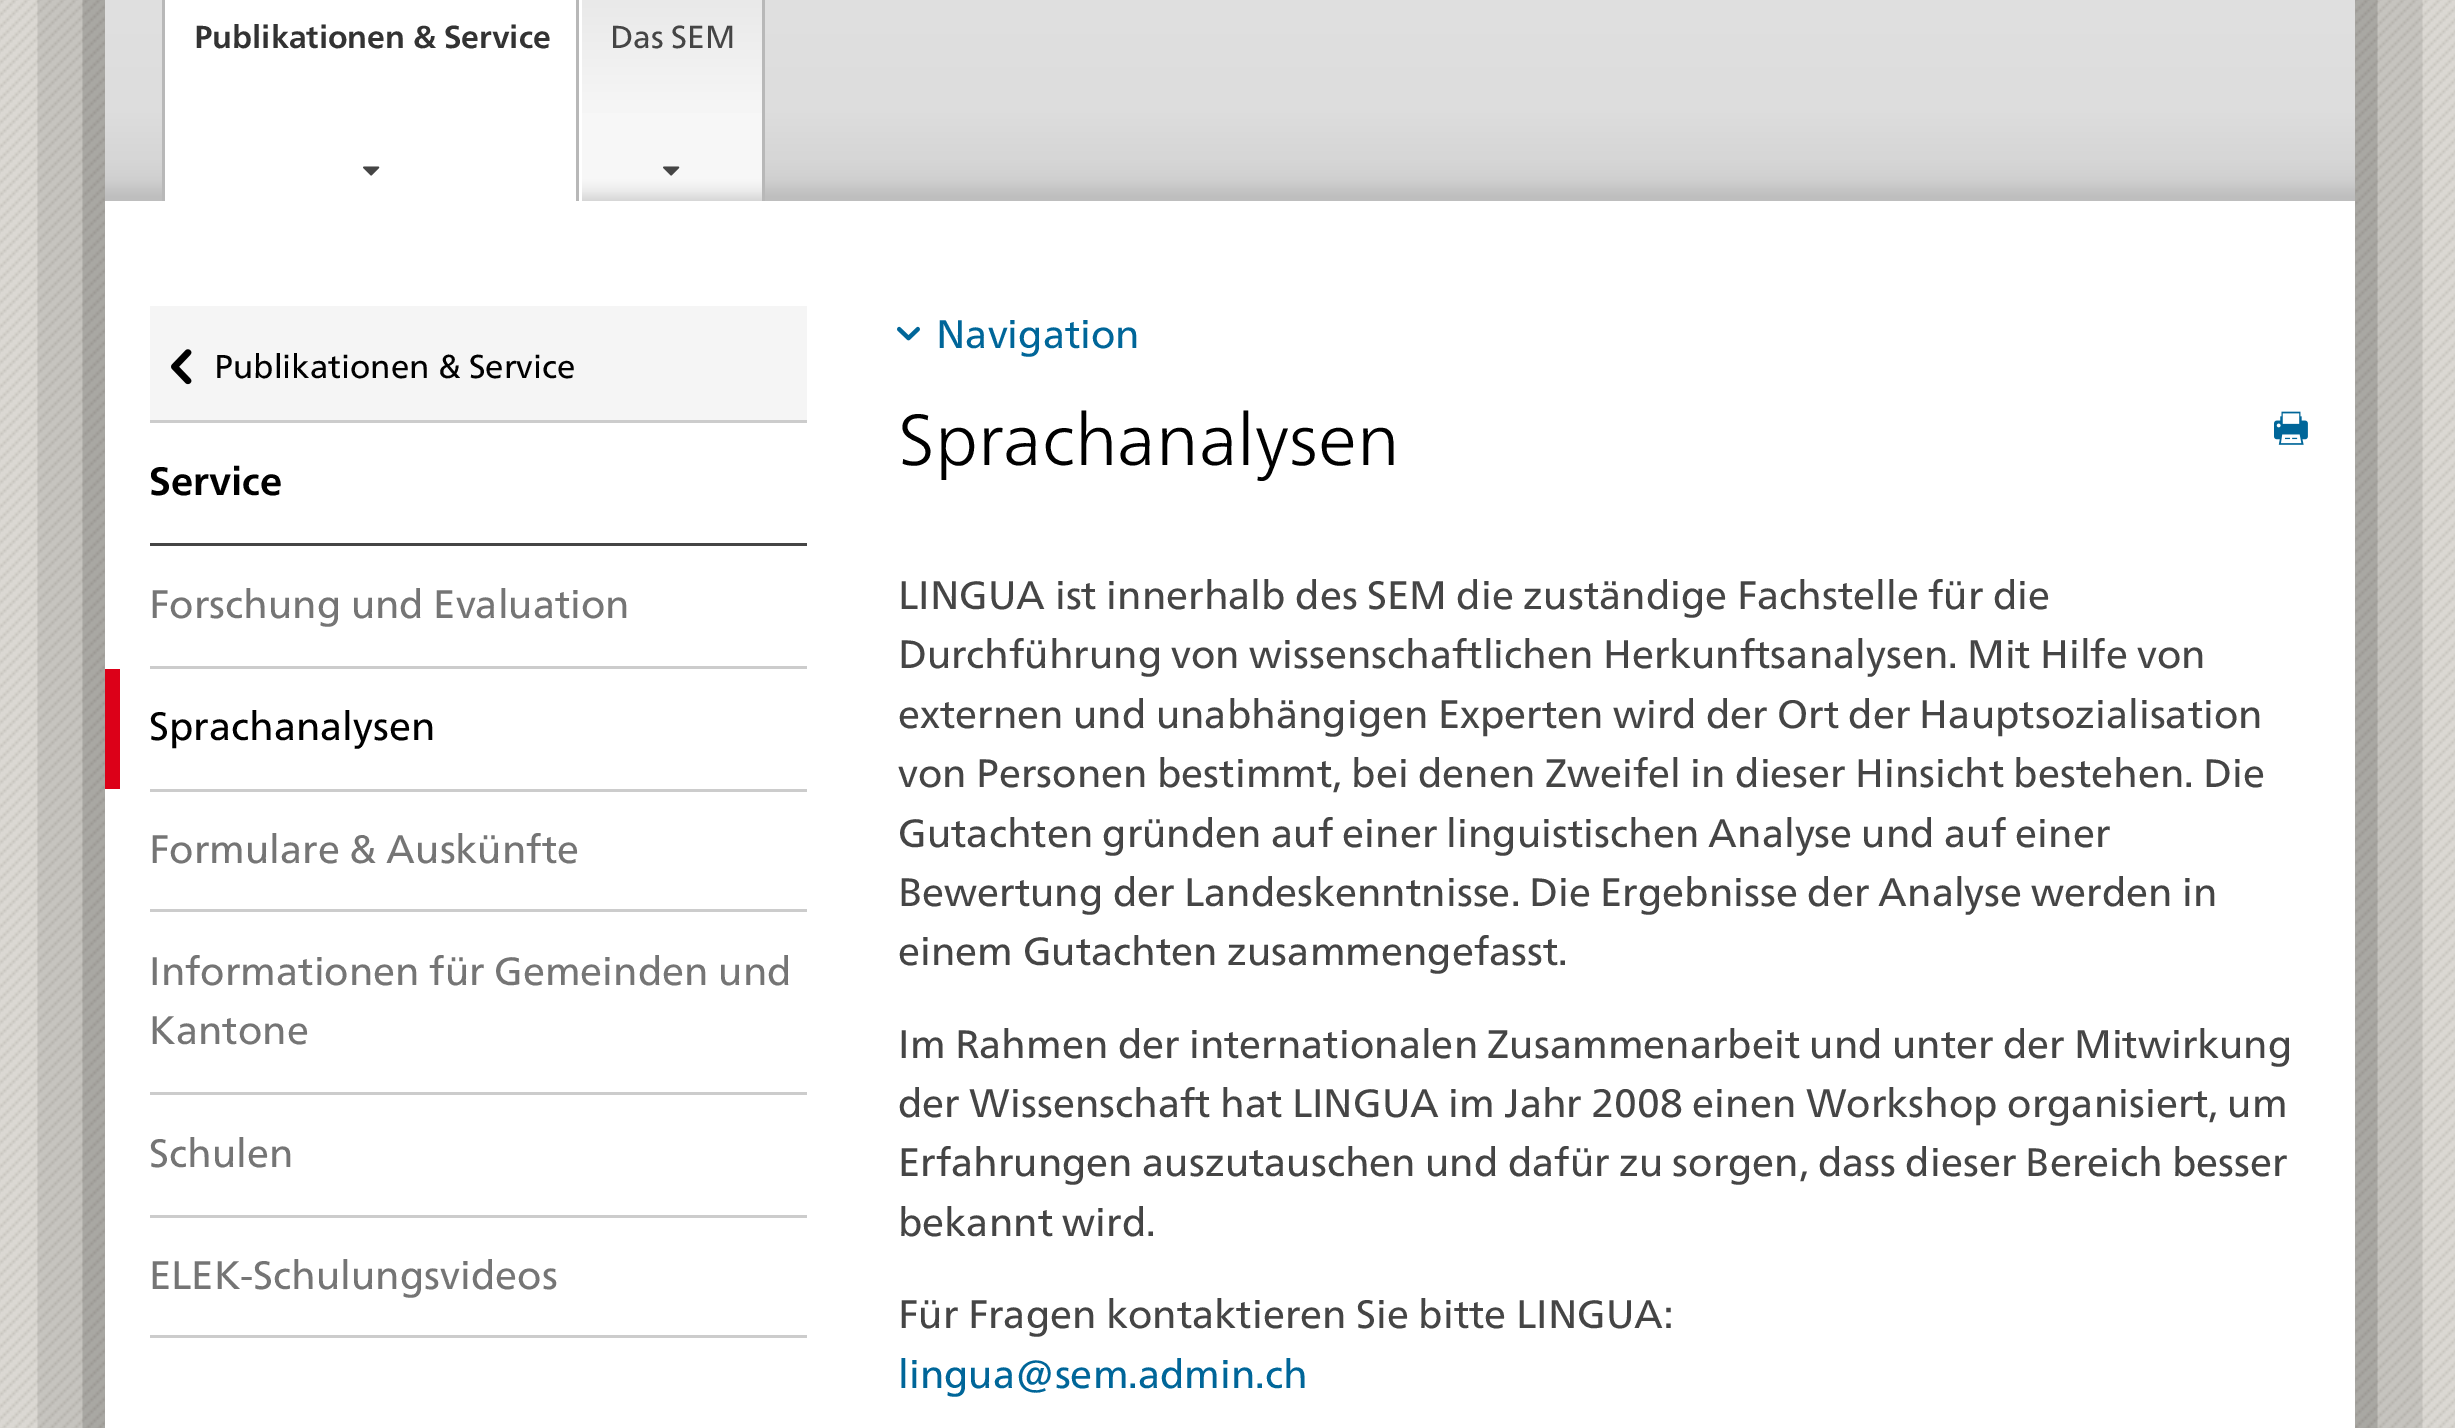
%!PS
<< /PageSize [2455 1428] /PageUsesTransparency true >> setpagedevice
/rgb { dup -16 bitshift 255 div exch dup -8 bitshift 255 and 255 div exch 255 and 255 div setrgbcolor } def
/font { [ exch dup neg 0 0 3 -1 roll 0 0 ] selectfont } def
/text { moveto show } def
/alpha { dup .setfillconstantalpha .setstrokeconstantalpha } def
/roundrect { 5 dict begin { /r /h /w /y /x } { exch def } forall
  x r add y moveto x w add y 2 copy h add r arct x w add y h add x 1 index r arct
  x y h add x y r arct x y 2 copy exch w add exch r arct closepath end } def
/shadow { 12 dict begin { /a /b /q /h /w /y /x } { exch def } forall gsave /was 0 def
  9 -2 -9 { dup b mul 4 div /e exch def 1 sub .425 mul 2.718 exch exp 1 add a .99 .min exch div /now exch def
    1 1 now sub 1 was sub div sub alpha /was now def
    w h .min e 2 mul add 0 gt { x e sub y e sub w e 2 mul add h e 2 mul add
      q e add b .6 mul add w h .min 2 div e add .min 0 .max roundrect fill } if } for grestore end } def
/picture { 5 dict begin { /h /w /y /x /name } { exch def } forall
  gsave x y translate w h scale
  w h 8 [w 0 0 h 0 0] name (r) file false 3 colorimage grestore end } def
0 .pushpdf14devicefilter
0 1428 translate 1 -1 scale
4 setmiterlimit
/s1 { /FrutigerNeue-Bold 31.75 font 16#333333 rgb } def
/s2 { /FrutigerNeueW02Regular-Regular 31.75 font 16#454545 rgb } def
/s3 { /FrutigerNeueW02Regular-Regular 33 font 16#000000 rgb } def
/s4 { /FrutigerNeue-Bold 39.6 font 16#000000 rgb } def
/s5 { /FrutigerNeueW02Regular-Regular 39.6 font 16#757575 rgb } def
/s6 { /FrutigerNeueW02Regular-Regular 39.6 font 16#000000 rgb } def
/s7 { /FrutigerNeueW02Regular-Regular 39.6 font 16#006699 rgb } def
/s8 { /FrutigerNeue-Light 72 font 16#000000 rgb } def
/s9 { /FrutigerNeueW02Regular-Regular 39.6 font 16#454545 rgb } def
16#FFFFFF rgb
0 0 2455 1428 rectfill
(pic1.raw) 0 0 2455 1428 picture
16#000000 rgb
105 -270 2250 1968 0 90 0.6 shadow
16#FFFFFF rgb
105 201 2250 1227 rectfill
gsave 105 0 moveto 2355 0 lineto 2355 201 lineto 105 201 lineto closepath clip newpath
<< /ShadingType 2 /ColorSpace /DeviceRGB /Coords [1230 -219 1230 201] /Extend [true true] /Function << /FunctionType 3 /Domain [0 1] /Functions [<< /FunctionType 2 /Domain [0 1] /C0 [0.894 0.894 0.894] /C1 [0.886 0.886 0.886] /N 1 >> << /FunctionType 2 /Domain [0 1] /C0 [0.886 0.886 0.886] /C1 [0.867 0.867 0.867] /N 1 >> << /FunctionType 2 /Domain [0 1] /C0 [0.867 0.867 0.867] /C1 [0.835 0.835 0.835] /N 1 >> << /FunctionType 2 /Domain [0 1] /C0 [0.835 0.835 0.835] /C1 [0.812 0.812 0.812] /N 1 >> << /FunctionType 2 /Domain [0 1] /C0 [0.812 0.812 0.812] /C1 [0.745 0.745 0.745] /N 1 >> << /FunctionType 2 /Domain [0 1] /C0 [0.745 0.745 0.745] /C1 [0.745 0.745 0.745] /N 1 >>] /Bounds [0.39 0.79 0.91 0.95 0.99] /Encode [0 1 0 1 0 1 0 1 0 1 0 1] >> >> shfill grestore
16#B8B8B8 rgb
162 0 3 201 rectfill
576 0 3 201 rectfill
16#FFFFFF rgb
165 0 411 201 rectfill
s1
(Publikationen & Service) 194 48 text
(pic2.raw) 363 166 17 10 picture
16#B8B8B8 rgb
762 0 3 201 rectfill
16#FFFFFF rgb
579 0 3 201 rectfill
gsave 582 0 moveto 762 0 lineto 762 201 lineto 582 201 lineto closepath clip newpath
<< /ShadingType 2 /ColorSpace /DeviceRGB /Coords [672 -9 672 201] /Extend [true true] /Function << /FunctionType 3 /Domain [0 1] /Functions [<< /FunctionType 2 /Domain [0 1] /C0 [0.91 0.91 0.91] /C1 [0.969 0.969 0.969] /N 1 >> << /FunctionType 2 /Domain [0 1] /C0 [0.969 0.969 0.969] /C1 [0.969 0.969 0.969] /N 1 >> << /FunctionType 2 /Domain [0 1] /C0 [0.969 0.969 0.969] /C1 [0.961 0.961 0.961] /N 1 >> << /FunctionType 2 /Domain [0 1] /C0 [0.961 0.961 0.961] /C1 [0.925 0.925 0.925] /N 1 >> << /FunctionType 2 /Domain [0 1] /C0 [0.925 0.925 0.925] /C1 [0.843 0.843 0.843] /N 1 >>] /Bounds [0.61 0.89 0.91 0.95] /Encode [0 1 0 1 0 1 0 1 0 1] >> >> shfill grestore
s2
(Das SEM) 610 48 text
(pic3.raw) 663 166 17 10 picture
16#F5F5F5 rgb
150 306 657 114 rectfill
16#CCCCCC rgb
150 420 657 3 rectfill
(pic4.raw) 171 349 21 36 picture
s3
(Publikationen & Service) 214 378 text
16#454545 rgb
150 543 657 3 rectfill
s4
(Service) 149 495 text
16#CCCCCC rgb
150 666 657 3 rectfill
s5
(Forschung und Evaluation) 149 618 text
16#CCCCCC rgb
150 789 657 3 rectfill
16#DC0018 rgb
105 669 15 120 rectfill
s6
(Sprachanalysen) 149 740 text
16#CCCCCC rgb
150 909 657 3 rectfill
s5
(Formulare & Auskünfte) 149 863 text
16#CCCCCC rgb
150 1092 657 3 rectfill
s5
(Informationen für Gemeinden und) 149 985 text
(Kantone) 149 1044 text
16#CCCCCC rgb
150 1215 657 3 rectfill
s5
(Schulen) 149 1167 text
16#CCCCCC rgb
150 1335 657 3 rectfill
s5
(ELEK-Schulungsvideos) 149 1289 text
(pic5.raw) 897 326 23 15 picture
s7
(Navigation) 936 348 text
s8
(Sprachanalysen) 898 465 text
(pic6.raw) 2274 411 34 34 picture
s9
(LINGUA ist innerhalb des SEM die zuständige Fachstelle für die) 898 609 text
898 668 moveto -0.25 0 32 (Durchführung von wissenschaftlichen Herkunftsanalysen. Mit Hilfe von) widthshow
898 728 moveto -0.25 0 32 (externen und unabhängigen Experten wird der Ort der Hauptsozialisation) widthshow
898 787 moveto -0.1 0 32 (von Personen bestimmt, bei denen Zweifel in dieser Hinsicht bestehen. Die) widthshow
898 847 moveto -0.25 0 32 (Gutachten gründen auf einer linguistischen Analyse und auf einer) widthshow
898 906 moveto -0.25 0 32 (Bewertung der Landeskenntnisse. Die Ergebnisse der Analyse werden in) widthshow
(einem Gutachten zusammengefasst.) 898 965 text
898 1058 moveto -0.25 0 32 (Im Rahmen der internationalen Zusammenarbeit und unter der Mitwirkung) widthshow
898 1117 moveto -0.1 0 32 (der Wissenschaft hat LINGUA im Jahr 2008 einen Workshop organisiert, um) widthshow
898 1176 moveto -0.25 0 32 (Erfahrungen auszutauschen und dafür zu sorgen, dass dieser Bereich besser) widthshow
(bekannt wird.) 898 1236 text
(Für Fragen kontaktieren Sie bitte LINGUA:) 898 1328 text
s7
(lingua@sem.admin.ch) 898 1388 text
.poppdf14devicefilter showpage
